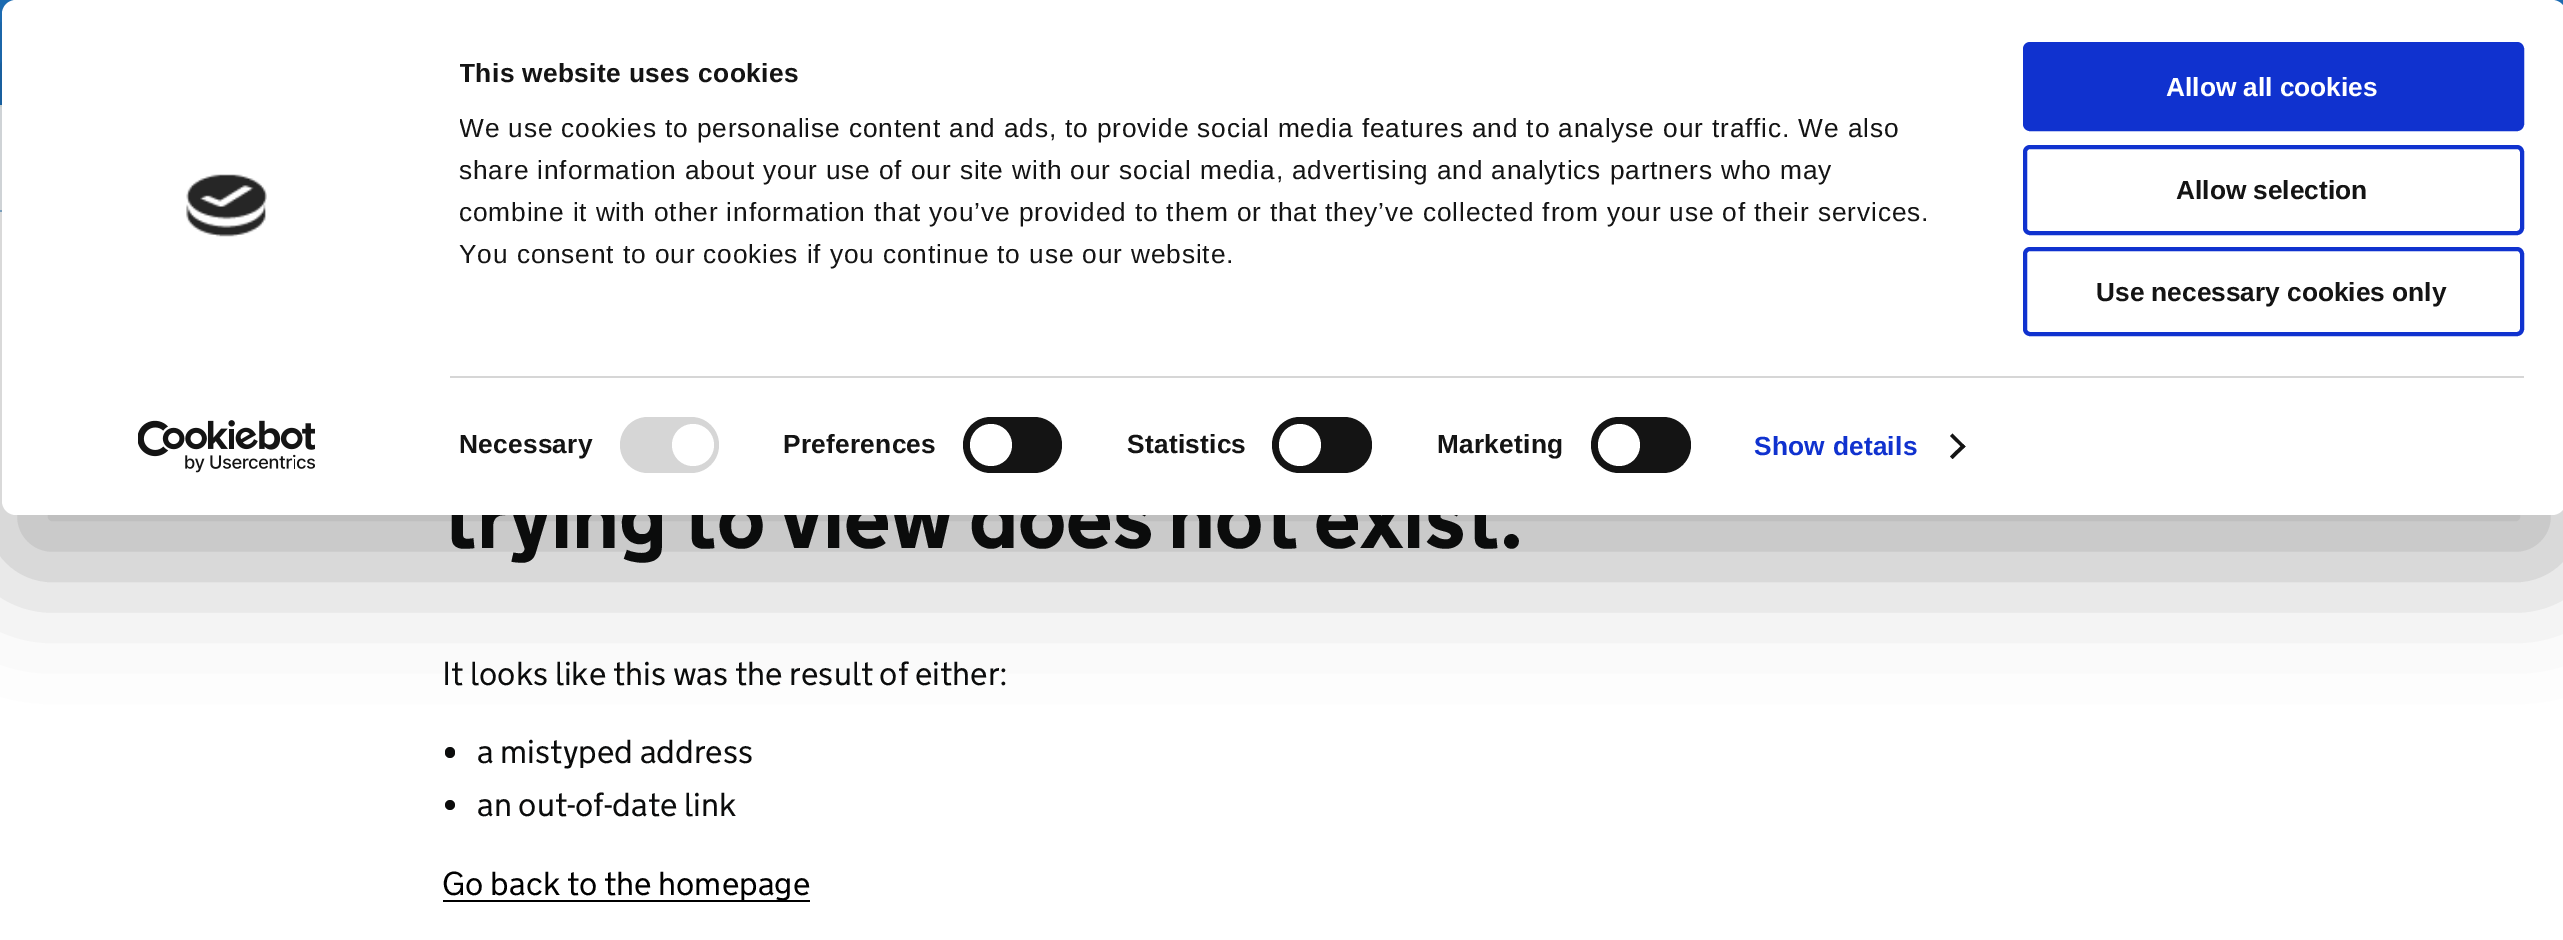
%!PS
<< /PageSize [2563 940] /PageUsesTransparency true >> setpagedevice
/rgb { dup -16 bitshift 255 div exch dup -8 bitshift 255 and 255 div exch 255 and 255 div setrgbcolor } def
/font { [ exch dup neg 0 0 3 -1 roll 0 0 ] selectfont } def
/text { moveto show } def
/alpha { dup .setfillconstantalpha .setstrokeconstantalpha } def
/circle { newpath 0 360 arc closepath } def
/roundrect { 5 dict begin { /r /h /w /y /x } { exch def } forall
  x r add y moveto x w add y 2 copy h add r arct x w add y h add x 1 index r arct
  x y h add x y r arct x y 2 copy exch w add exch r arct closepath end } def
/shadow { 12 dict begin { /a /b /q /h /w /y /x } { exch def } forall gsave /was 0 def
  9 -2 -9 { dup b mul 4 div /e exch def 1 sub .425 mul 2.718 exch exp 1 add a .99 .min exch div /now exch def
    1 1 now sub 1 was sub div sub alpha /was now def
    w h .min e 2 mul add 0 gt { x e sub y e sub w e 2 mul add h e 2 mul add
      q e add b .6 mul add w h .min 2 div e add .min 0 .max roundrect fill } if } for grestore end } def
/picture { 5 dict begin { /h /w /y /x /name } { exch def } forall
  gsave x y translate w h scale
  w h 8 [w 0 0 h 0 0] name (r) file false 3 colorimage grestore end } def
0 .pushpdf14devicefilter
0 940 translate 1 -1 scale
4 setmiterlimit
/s1 { /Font-Bold 84 font 16#0B0C0C rgb } def
/s2 { /LiberationSans-Bold 26.25 font 16#FFFFFF rgb } def
/s3 { /LiberationSans-Bold 26.25 font 16#141414 rgb } def
/s4 { /Font-Light 33.25 font 16#0B0C0C rgb } def
/s5 { /Font-Light 33.25 font 16#000000 rgb } def
16#FFFFFF rgb
0 0 2563 940 rectfill
16#1D70B8 rgb
0 0 2563 105 rectfill
16#E8F3F1 rgb
0 105 2 2 rectfill
16#F4F8FB rgb
0 107 2 103 rectfill
16#8EB8DC rgb
0 210 2 2 rectfill
16#0B0C0C rgb
445 747 10 11 5 roundrect fill
gsave
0 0 moveto 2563 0 lineto 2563 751 lineto 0 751 lineto closepath 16 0 moveto 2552 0 lineto 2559.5 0 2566 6.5 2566 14 curveto 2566 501 lineto 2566 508.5 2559.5 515 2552 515 curveto 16 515 lineto 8.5 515 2 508.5 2 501 curveto 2 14 lineto 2 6.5 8.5 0 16 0 curveto closepath eoclip newpath
16#000000 rgb
2 53 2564 514 14 61 0.3 shadow
grestore
s1
(trying to view does not exist.) 442 548 text
16#FFFFFF rgb
2 0 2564 515 14 roundrect fill
(pic1.raw) 186 174 81 63 picture
(pic2.raw) 138 420 177 53 picture
gsave
460 53 1512 273 rectclip
/LiberationSans-Bold 26.25 font
16#141414 rgb
459 82 moveto 0.4 0 (This website uses cookies) ashow
/LiberationSans-Regular 26.25 font
459 137 moveto 0.88 0 (We use cookies to personalise content and ads, to provide social media features and to analyse our traffic. We also) ashow
grestore
/LiberationSans-Regular 26.25 font
16#141414 rgb
459 179 moveto 0.88 0 (share information about your use of our site with our social media, advertising and analytics partners who may) ashow
gsave
460 53 1512 273 rectclip
459 221 moveto 0.88 0 (combine it with other information that you’ve provided to them or that they’ve collected from your use of their services.) ashow
grestore
459 263 moveto 0.88 0 (You consent to our cookies if you continue to use our website.) ashow
16#D6D6D6 rgb
450 376 2074 2 rectfill
/LiberationSans-Bold 26.25 font
16#141414 rgb
459 453 moveto 0.25 0 (Necessary) ashow
16#D6D6D6 rgb
620 417 99 56 28 roundrect fill
16#FFFFFF rgb
693 445 21 circle fill
16#141414 rgb
783 453 moveto 0.25 0 (Preferences) ashow
963 417 99 56 28 roundrect fill
16#FFFFFF rgb
991 445 21 circle fill
16#141414 rgb
1127 453 moveto 0.25 0 (Statistics) ashow
1272 417 100 56 28 roundrect fill
16#FFFFFF rgb
1300 445 21 circle fill
16#141414 rgb
1437 453 moveto 0.25 0 (Marketing) ashow
1591 417 100 56 28 roundrect fill
16#FFFFFF rgb
1619 445 21 circle fill
16#1032CF rgb
1754 455 moveto 0.25 0 (Show details) ashow
16#141414 rgb
1952.5 433.5 moveto 1965.5 446.5 lineto 1963 448.5 lineto 1950 436 lineto closepath fill
1963 444 moveto 1965.5 446.5 lineto 1952.5 459 lineto 1950 456.5 lineto closepath fill
16#1032CF rgb
2025 44 497 85 5 roundrect gsave fill grestore
4 setlinewidth
stroke
s2
(Allow all cookies) 2166 96 text
16#1032CF rgb
2025 147 497 86 5 roundrect stroke
s3
(Allow selection) 2176 199 text
16#1032CF rgb
2025 249 497 85 5 roundrect stroke
s3
(Use necessary cookies only) 2096 301 text
s4
(It looks like this was the result of either:) 442 685 text
(a mistyped address) 477 763 text
450 805 5 circle fill
(an out-of-date link) 477 816 text
16#000000 rgb
443 900 367 2 rectfill
(Go back to the homepage) 442 895 text
.poppdf14devicefilter showpage
